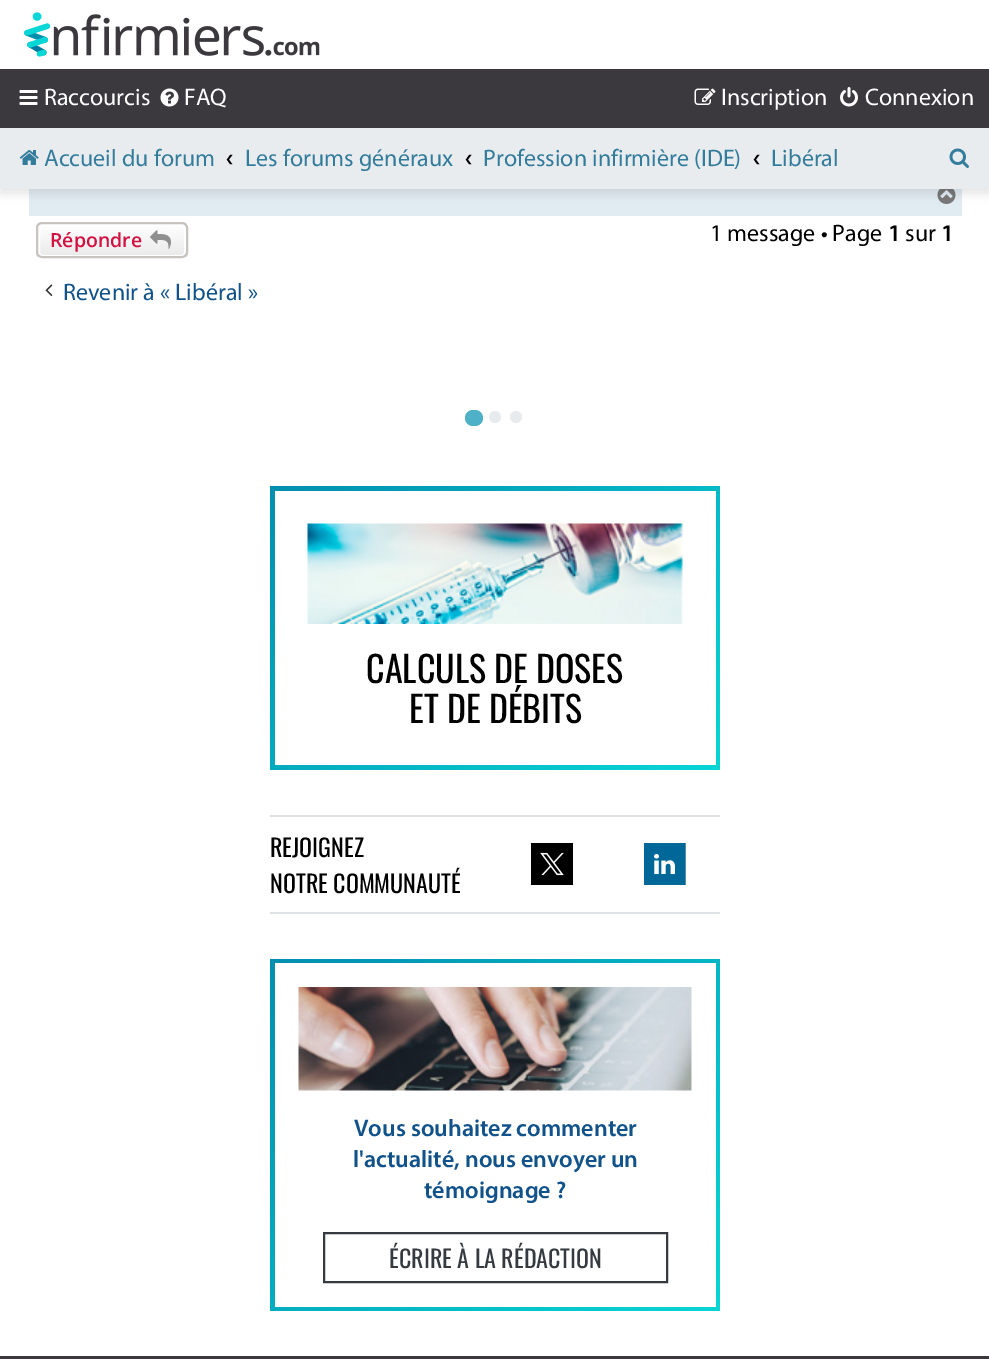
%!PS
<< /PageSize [989 1359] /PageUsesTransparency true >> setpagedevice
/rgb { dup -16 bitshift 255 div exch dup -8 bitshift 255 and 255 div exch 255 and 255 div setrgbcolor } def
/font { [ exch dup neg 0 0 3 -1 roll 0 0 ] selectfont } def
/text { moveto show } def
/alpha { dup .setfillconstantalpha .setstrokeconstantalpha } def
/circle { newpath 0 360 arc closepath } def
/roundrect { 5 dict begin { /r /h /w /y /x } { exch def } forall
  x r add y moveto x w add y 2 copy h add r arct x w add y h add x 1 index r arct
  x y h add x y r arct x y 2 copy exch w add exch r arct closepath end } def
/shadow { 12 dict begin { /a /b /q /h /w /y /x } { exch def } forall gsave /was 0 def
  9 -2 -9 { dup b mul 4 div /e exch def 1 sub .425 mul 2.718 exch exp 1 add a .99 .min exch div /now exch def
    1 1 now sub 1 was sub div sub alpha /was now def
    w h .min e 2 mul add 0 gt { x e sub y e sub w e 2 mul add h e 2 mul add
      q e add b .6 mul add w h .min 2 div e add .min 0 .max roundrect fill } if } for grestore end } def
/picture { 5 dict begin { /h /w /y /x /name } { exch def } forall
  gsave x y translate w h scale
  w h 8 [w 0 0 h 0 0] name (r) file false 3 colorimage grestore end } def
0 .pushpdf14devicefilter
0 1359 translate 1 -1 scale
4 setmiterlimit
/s1 { /Myriad-Regular 24 font 16#FFFFFF rgb } def
/s2 { /Myriad-Regular 24 font 16#337C9C rgb } def
/s3 { /Myriad-Bold 24 font 16#000000 rgb } def
/s4 { /OpenSans-SemiBold 19.5 font 16#D31141 rgb } def
/s5 { /Myriad-Regular 24 font 16#000000 rgb } def
/s6 { /Myriad-SemiBold 24 font 16#000000 rgb } def
/s7 { /Myriad-Regular 24 font 16#105289 rgb } def
/s8 { /Oswald-Regular 36 font 16#000000 rgb } def
/s9 { /Oswald-Regular 24 font 16#000000 rgb } def
/s10 { /Myriad-SemiBold 24 font 16#105289 rgb } def
/s11 { /Oswald-Regular 24 font 16#343A40 rgb } def
16#FFFFFF rgb
0 0 989 1359 rectfill
16#E1EBF2 rgb
29 189 933 27 rectfill
(pic8.raw) 937 189 19 15 picture
16#000000 rgb
0 5 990 189 0 4.5 0.1 shadow
16#FFFFFF rgb
0 0 989 69 rectfill
(pic1.raw) 24 12 296 45 picture
16#3B393E rgb
0 69 989 59 rectfill
(pic2.raw) 19 90 19 15 picture
s1
(Raccourcis) 44 105 text
(pic3.raw) 160 88 19 19 picture
(FAQ) 184 105 text
(pic4.raw) 694 88 22 17 picture
(Inscription) 721 105 text
(pic5.raw) 840 87 18 20 picture
(Connexion) 865 105 text
16#E9ECEF rgb
0 128 989 61 rectfill
(pic6.raw) 19 150 20 15 picture
s2
(Accueil du forum) 44 166 text
s3
(‹) 226 166 text
s2
(Les forums généraux) 245 166 text
s3
(‹) 465 166 text
s2
(Profession infirmière \(IDE\)) 483 166 text
s3
(‹) 753 166 text
s2
(Libéral) 771 166 text
(pic7.raw) 949 148 20 20 picture
gsave
36 222 152 36 6 roundrect clip newpath
gsave 36 224 moveto 188 224 lineto 188 257 lineto 36 257 lineto closepath clip newpath
<< /ShadingType 2 /ColorSpace /DeviceRGB /Coords [112 224 112 257] /Extend [true true] /Function << /FunctionType 2 /Domain [0 1] /C0 [1 1 1] /C1 [0.914 0.914 0.914] /N 1 >> >> shfill grestore
grestore
16#FFFFFF rgb
2 setlinewidth
39 225 146 31 4 roundrect stroke
16#C7C3BF rgb
37 223 150 34 5 roundrect stroke
s4
(Répondre) 50 247 text
(pic9.raw) 150 230 21 19 picture
s5
(1 message • Page) 710 241 text
s6
(1) 888 241 text
s5
(sur) 905 241 text
s6
(1) 941 241 text
(pic10.raw) 45 284 8 12 picture
s7
(Revenir à « Libéral ») 63 300 text
16#4EB1C7 rgb
465 410 18 16 8 roundrect fill
16#E8EBEE rgb
495 417 6 circle fill
516 417 6 circle fill
gsave 270 486 moveto 720 486 lineto 720 770 lineto 270 770 lineto closepath clip newpath
<< /ShadingType 2 /ColorSpace /DeviceRGB /Coords [312 444 678 811] /Extend [true true] /Function << /FunctionType 2 /Domain [0 1] /C0 [0.008 0.561 0.686] /C1 [0.035 0.835 0.835] /N 1 >> >> shfill grestore
16#FFFFFF rgb
275 491 441 274 rectfill
(pic11.raw) 307 523 376 101 picture
s8
(CALCULS DE DOSES) 366 683 text
(ET DE DÉBITS) 409 723 text
16#DEE2E6 rgb
270 815 450 2 rectfill
270 912 450 2 rectfill
s9
(REJOIGNEZ) 270 857 text
(NOTRE COMMUNAUTÉ) 270 893 text
(pic12.raw) 531 843 42 42 picture
16#ADB5BD rgb
654 843 32 42 rectfill
(pic13.raw) 644 843 42 42 picture
gsave 270 959 moveto 720 959 lineto 720 1311 lineto 270 1311 lineto closepath clip newpath
<< /ShadingType 2 /ColorSpace /DeviceRGB /Coords [294 934 696 1335] /Extend [true true] /Function << /FunctionType 2 /Domain [0 1] /C0 [0.008 0.561 0.686] /C1 [0.035 0.835 0.835] /N 1 >> >> shfill grestore
16#FFFFFF rgb
275 963 441 344 rectfill
(pic14.raw) 298 987 394 104 picture
s10
(Vous souhaitez commenter) 354 1136 text
(l'actualité, nous envoyer un) 353 1167 text
(témoignage ?) 424 1198 text
16#343A40 rgb
324 1233 343 49 rectstroke
s11
(ÉCRIRE À LA RÉDACTION) 389 1268 text
16#3B393E rgb
0 1356 989 3 rectfill
.poppdf14devicefilter showpage
